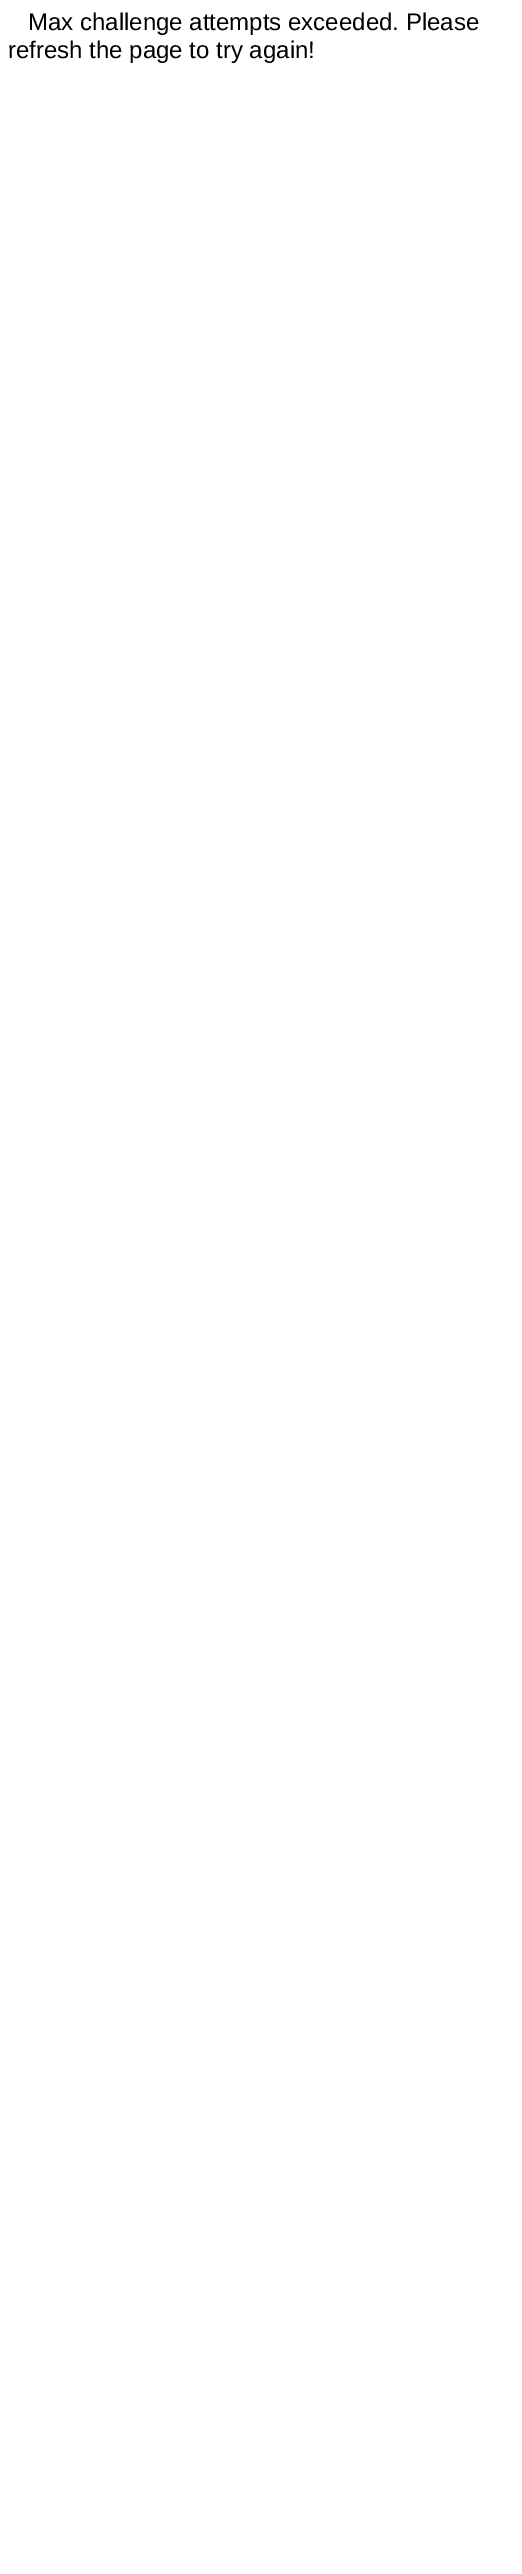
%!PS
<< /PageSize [522 2574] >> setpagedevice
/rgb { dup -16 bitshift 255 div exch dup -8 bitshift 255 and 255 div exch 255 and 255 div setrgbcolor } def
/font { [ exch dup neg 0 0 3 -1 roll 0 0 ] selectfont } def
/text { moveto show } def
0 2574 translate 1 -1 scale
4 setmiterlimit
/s1 { /LiberationSans-Regular 24 font 16#000000 rgb } def
16#FFFFFF rgb
0 0 522 2574 rectfill
s1
(Max challenge attempts exceeded. Please) 28 30 text
(refresh the page to try again!) 8 58 text
showpage
